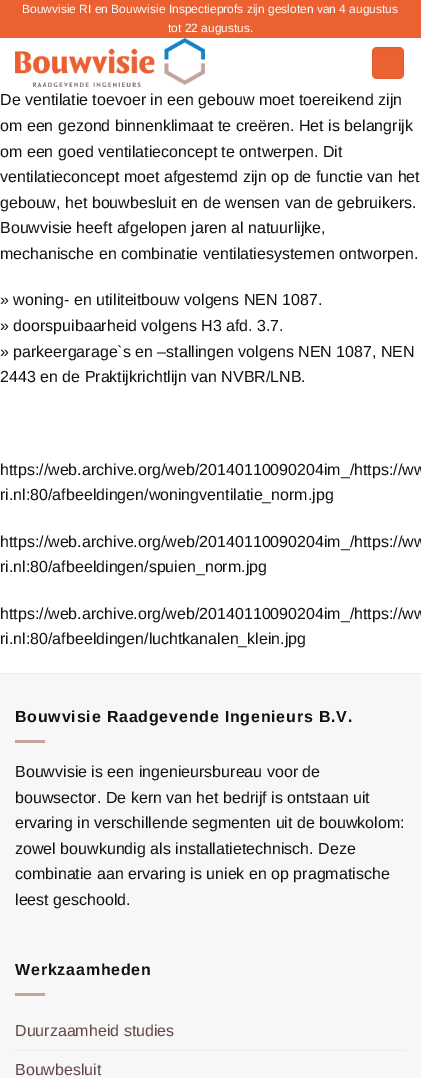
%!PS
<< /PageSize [421 1078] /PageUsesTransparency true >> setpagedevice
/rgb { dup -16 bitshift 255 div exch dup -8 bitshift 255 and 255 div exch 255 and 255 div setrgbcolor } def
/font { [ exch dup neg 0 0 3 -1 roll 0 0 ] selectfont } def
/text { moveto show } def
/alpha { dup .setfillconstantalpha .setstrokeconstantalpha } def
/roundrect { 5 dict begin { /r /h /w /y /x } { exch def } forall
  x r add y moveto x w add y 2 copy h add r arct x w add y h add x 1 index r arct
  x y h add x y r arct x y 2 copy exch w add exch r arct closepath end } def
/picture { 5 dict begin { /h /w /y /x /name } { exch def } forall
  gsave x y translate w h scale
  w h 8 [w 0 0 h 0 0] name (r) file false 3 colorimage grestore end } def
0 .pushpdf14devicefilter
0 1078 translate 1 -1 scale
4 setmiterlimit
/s1 { /LiberationSans-Regular 12 font 16#FFFFFF rgb } def
/s2 { /LiberationSans-Regular 16 font 16#111111 rgb } def
/s3 { /LiberationSans-Regular 16 font 16#634745 rgb } def
16#FFFFFF rgb
0 0 421 1078 rectfill
16#EC6132 rgb
0 0 421 38 rectfill
s1
(Bouwvisie RI en Bouwvisie Inspectieprofs zijn gesloten van 4 augustus) 22 13 text
(tot 22 augustus.) 168 32 text
(pic1.raw) 15 38 190 49 picture
16#EC6132 rgb
372 47 32 32 5 roundrect fill
0.05 alpha
16#000000 rgb
372.5 47.5 31 31 rectstroke
1 alpha
s2
(De ventilatie toevoer in een gebouw moet toereikend zijn) 0 105 text
(om een gezond binnenklimaat te creëren. Het is belangrijk) 0 131 text
(om een goed ventilatieconcept te ontwerpen. Dit) 0 157 text
(ventilatieconcept moet afgestemd zijn op de functie van het) 0 182 text
(gebouw, het bouwbesluit en de wensen van de gebruikers.) 0 208 text
(Bouwvisie heeft afgelopen jaren al natuurlijke,) 0 233 text
(mechanische en combinatie ventilatiesystemen ontworpen.) 0 259 text
(» woning- en utiliteitbouw volgens NEN 1087.) 0 305 text
(» doorspuibaarheid volgens H3 afd. 3.7.) 0 331 text
(» parkeergarage`s en –stallingen volgens NEN 1087, NEN) 0 357 text
(2443 en de Praktijkrichtlijn van NVBR/LNB.) 0 382 text
(https://web.archive.org/web/20140110090204im_/https://ww) 0 475 text
(ri.nl:80/afbeeldingen/woningventilatie_norm.jpg) 0 500 text
(https://web.archive.org/web/20140110090204im_/https://ww) 0 547 text
(ri.nl:80/afbeeldingen/spuien_norm.jpg) 0 572 text
(https://web.archive.org/web/20140110090204im_/https://ww) 0 619 text
(ri.nl:80/afbeeldingen/luchtkanalen_klein.jpg) 0 644 text
16#F7F7F7 rgb
0 674 421 404 rectfill
16#EBEBEB rgb
0 673 421 1 rectfill
/LiberationSans-Bold 16 font
16#111111 rgb
15 722 moveto 0.8 0 (Bouwvisie Raadgevende Ingenieurs B.V.) ashow
16#C2A59C rgb
15 740 30 3 rectfill
s2
(Bouwvisie is een ingenieursbureau voor de) 15 777 text
(bouwsector. De kern van het bedrijf is ontstaan uit) 15 803 text
(ervaring in verschillende segmenten uit de bouwkolom:) 15 828 text
(zowel bouwkundig als installatietechnisch. Deze) 15 854 text
(combinatie aan ervaring is uniek en op pragmatische) 15 879 text
(leest geschoold.) 15 905 text
/LiberationSans-Bold 16 font
15 975 moveto 0.8 0 (Werkzaamheden) ashow
16#C2A59C rgb
15 993 30 3 rectfill
s3
(Duurzaamheid studies) 15 1036 text
16#ECECEC rgb
15 1050 391 1 rectfill
s3
(Bouwbesluit) 15 1075 text
.poppdf14devicefilter showpage
